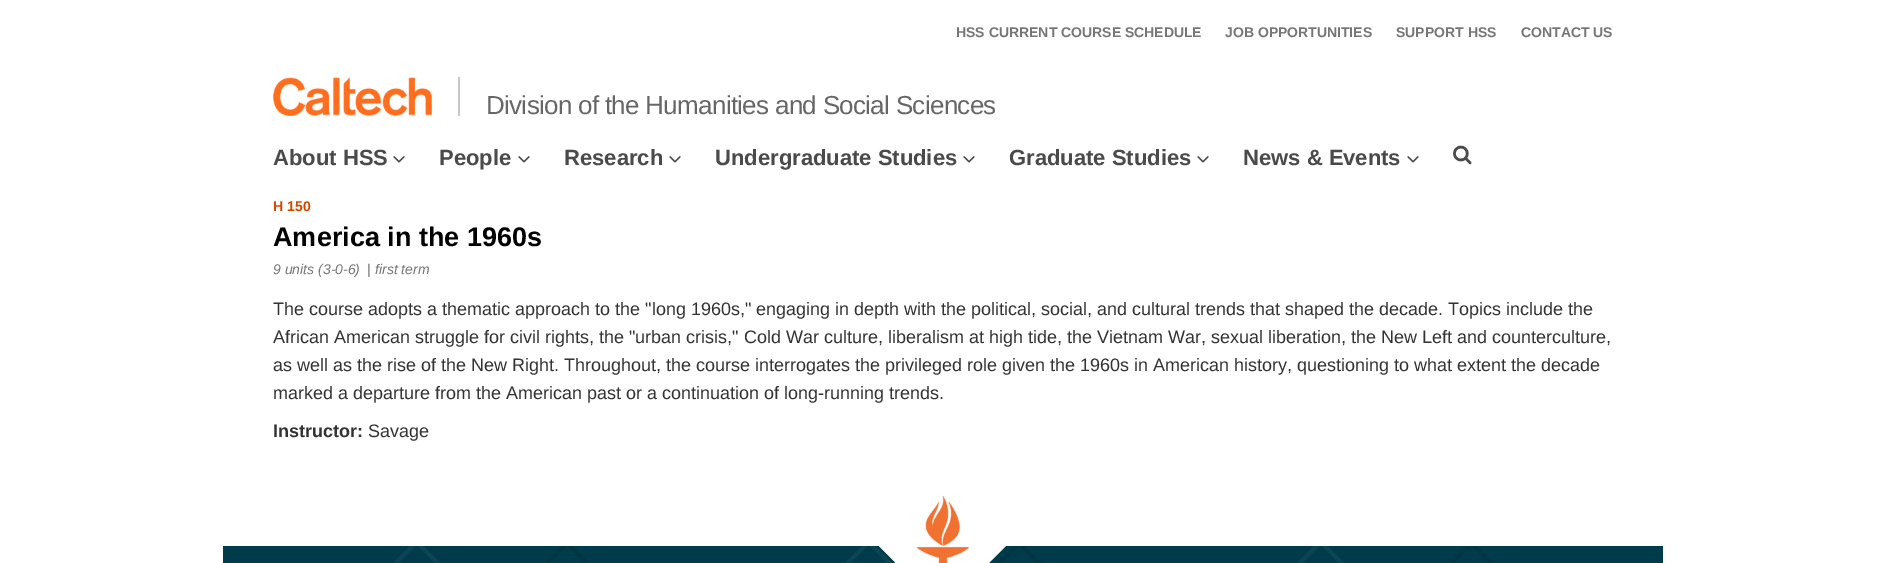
%!PS
<< /PageSize [1885 563] >> setpagedevice
/rgb { dup -16 bitshift 255 div exch dup -8 bitshift 255 and 255 div exch 255 and 255 div setrgbcolor } def
/font { [ exch dup neg 0 0 3 -1 roll 0 0 ] selectfont } def
/text { moveto show } def
/picture { 5 dict begin { /h /w /y /x /name } { exch def } forall
  gsave x y translate w h scale
  w h 8 [w 0 0 h 0 0] name (r) file false 3 colorimage grestore end } def
0 563 translate 1 -1 scale
4 setmiterlimit
/s1 { /LiberationSans-Bold 14 font 16#767676 rgb } def
/s2 { /LiberationSans-Bold 22 font 16#4A4A4A rgb } def
/s3 { /LiberationSans-Bold 14 font 16#D14900 rgb } def
/s4 { /LiberationSans-Bold 27 font 16#000000 rgb } def
/s5 { /LiberationSans-Italic 14 font 16#767676 rgb } def
/s6 { /LiberationSans-Regular 14 font 16#767676 rgb } def
/s7 { /LiberationSans-Regular 18 font 16#333333 rgb } def
/s8 { /LiberationSans-Bold 18 font 16#333333 rgb } def
16#FFFFFF rgb
0 0 1885 563 rectfill
s1
(HSS CURRENT COURSE SCHEDULE) 956 37 text
(JOB OPPORTUNITIES) 1225 37 text
(SUPPORT HSS) 1396 37 text
(CONTACT US) 1521 37 text
(pic1.raw) 273 77 159 39 picture
16#C8C8C8 rgb
458 77 2 39 rectfill
/LiberationSans-Regular 26 font
16#666666 rgb
486 114 moveto -0.7 0 (Division of the Humanities and Social Sciences) ashow
s2
(About HSS) 273 165 text
(pic2.raw) 393 156 12 7 picture
(People) 439 165 text
(pic2.raw) 518 156 12 7 picture
(Research) 564 165 text
(pic2.raw) 669 156 12 7 picture
(Undergraduate Studies) 715 165 text
(pic2.raw) 963 156 12 7 picture
(Graduate Studies) 1009 165 text
(pic2.raw) 1197 156 12 7 picture
(News & Events) 1243 165 text
(pic2.raw) 1407 156 12 7 picture
(pic3.raw) 1453 145 19 20 picture
s3
(H 150) 273 211 text
s4
(America in the 1960s) 273 246 text
s5
(9 units \(3-0-6\)) 273 274 text
s6
(|) 367 274 text
s5
(first term) 375 274 text
s7
(The course adopts a thematic approach to the "long 1960s," engaging in depth with the political, social, and cultural trends that shaped the decade. Topics include the) 273 315 text
(African American struggle for civil rights, the "urban crisis," Cold War culture, liberalism at high tide, the Vietnam War, sexual liberation, the New Left and counterculture,) 273 343 text
(as well as the rise of the New Right. Throughout, the course interrogates the privileged role given the 1960s in American history, questioning to what extent the decade) 273 371 text
(marked a departure from the American past or a continuation of long-running trends.) 273 399 text
s8
(Instructor:) 273 437 text
s7
(Savage) 368 437 text
16#003B4C rgb
223 546 1440 17 rectfill
(pic4.raw) 393 546 1100 17 picture
16#FFFFFF rgb
942 482 moveto 1006 546 lineto 942 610 lineto 879 546 lineto closepath fill
(pic5.raw) 917 496 52 67 picture
showpage
